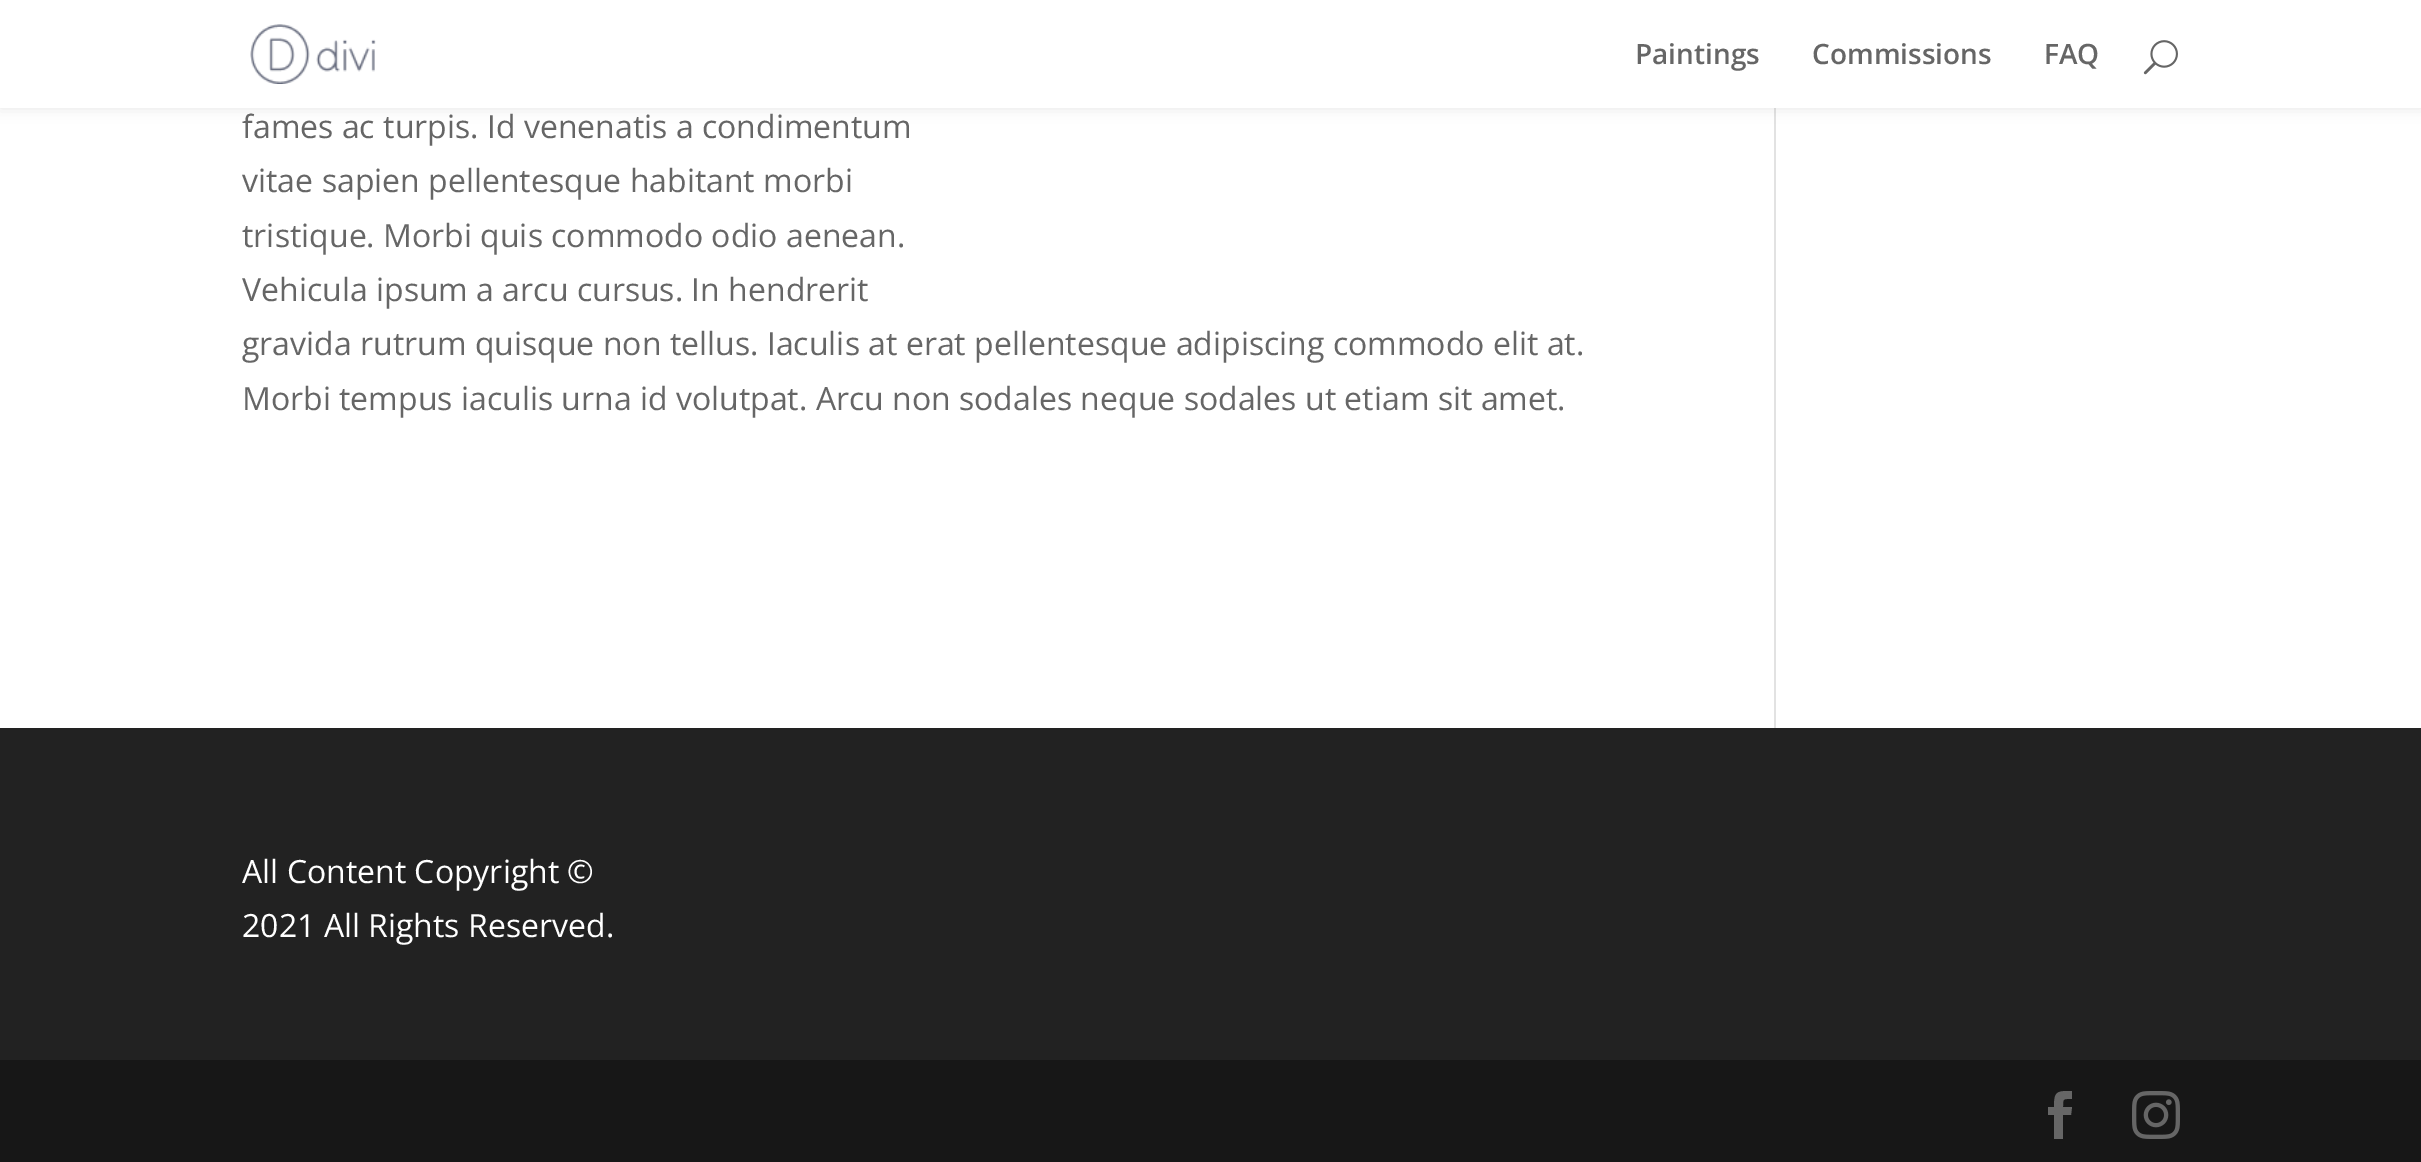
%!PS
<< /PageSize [2421 1162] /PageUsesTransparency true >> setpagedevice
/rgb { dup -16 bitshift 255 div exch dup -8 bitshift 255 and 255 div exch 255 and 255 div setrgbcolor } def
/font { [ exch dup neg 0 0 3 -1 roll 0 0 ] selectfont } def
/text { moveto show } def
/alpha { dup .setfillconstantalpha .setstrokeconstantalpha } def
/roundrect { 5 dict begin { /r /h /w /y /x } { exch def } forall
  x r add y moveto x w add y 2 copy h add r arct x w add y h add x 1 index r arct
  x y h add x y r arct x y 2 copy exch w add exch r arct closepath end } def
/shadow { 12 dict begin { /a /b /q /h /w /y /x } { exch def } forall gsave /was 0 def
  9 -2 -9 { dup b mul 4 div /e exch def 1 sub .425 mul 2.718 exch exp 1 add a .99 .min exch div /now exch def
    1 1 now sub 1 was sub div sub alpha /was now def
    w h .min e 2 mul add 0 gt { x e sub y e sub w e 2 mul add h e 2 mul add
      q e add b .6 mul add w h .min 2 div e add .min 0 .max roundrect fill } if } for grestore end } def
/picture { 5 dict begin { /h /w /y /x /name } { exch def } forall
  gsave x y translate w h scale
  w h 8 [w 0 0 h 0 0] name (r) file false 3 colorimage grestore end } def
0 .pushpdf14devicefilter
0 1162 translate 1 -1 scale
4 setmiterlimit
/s1 { /OpenSans-SemiBold 28 font 16#666666 rgb } def
/s2 { /OpenSans-Regular 32 font 16#666666 rgb } def
/s3 { /OpenSans-Regular 32 font 16#FFFFFF rgb } def
16#FFFFFF rgb
0 0 2421 1162 rectfill
16#E2E2E2 rgb
1774 108 2 620 rectfill
16#000000 rgb
0 0 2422 108 0 7 0.1 shadow
16#FFFFFF rgb
0 0 2421 108 rectfill
(pic1.raw) 250 24 126 60 picture
s1
(Paintings) 1635 64 text
(Commissions) 1812 64 text
(FAQ) 2044 64 text
(pic2.raw) 2143 40 35 35 picture
s2
(fames ac turpis. Id venenatis a condimentum) 242 138 text
(vitae sapien pellentesque habitant morbi) 242 192 text
(tristique. Morbi quis commodo odio aenean.) 242 247 text
(Vehicula ipsum a arcu cursus. In hendrerit) 242 301 text
(gravida rutrum quisque non tellus. Iaculis at erat pellentesque adipiscing commodo elit at.) 242 355 text
(Morbi tempus iaculis urna id volutpat. Arcu non sodales neque sodales ut etiam sit amet.) 242 410 text
16#222222 rgb
0 728 2421 332 rectfill
s3
(All Content Copyright ©) 242 883 text
(2021 All Rights Reserved.) 242 937 text
16#171717 rgb
0 1060 2421 102 rectfill
16#666666 rgb
2054 1139 moveto 2063 1139 lineto 2063 1115 lineto 2071 1115 lineto 2072 1107 lineto 2063 1107 lineto 2063 1098 2063 1099 2072 1099 curveto 2072 1091 lineto 2057 1091 2054 1091 2054 1107 curveto 2048 1107 lineto 2048 1115 lineto 2054 1115 lineto closepath fill
(pic3.raw) 2132 1091 48 48 picture
.poppdf14devicefilter showpage
